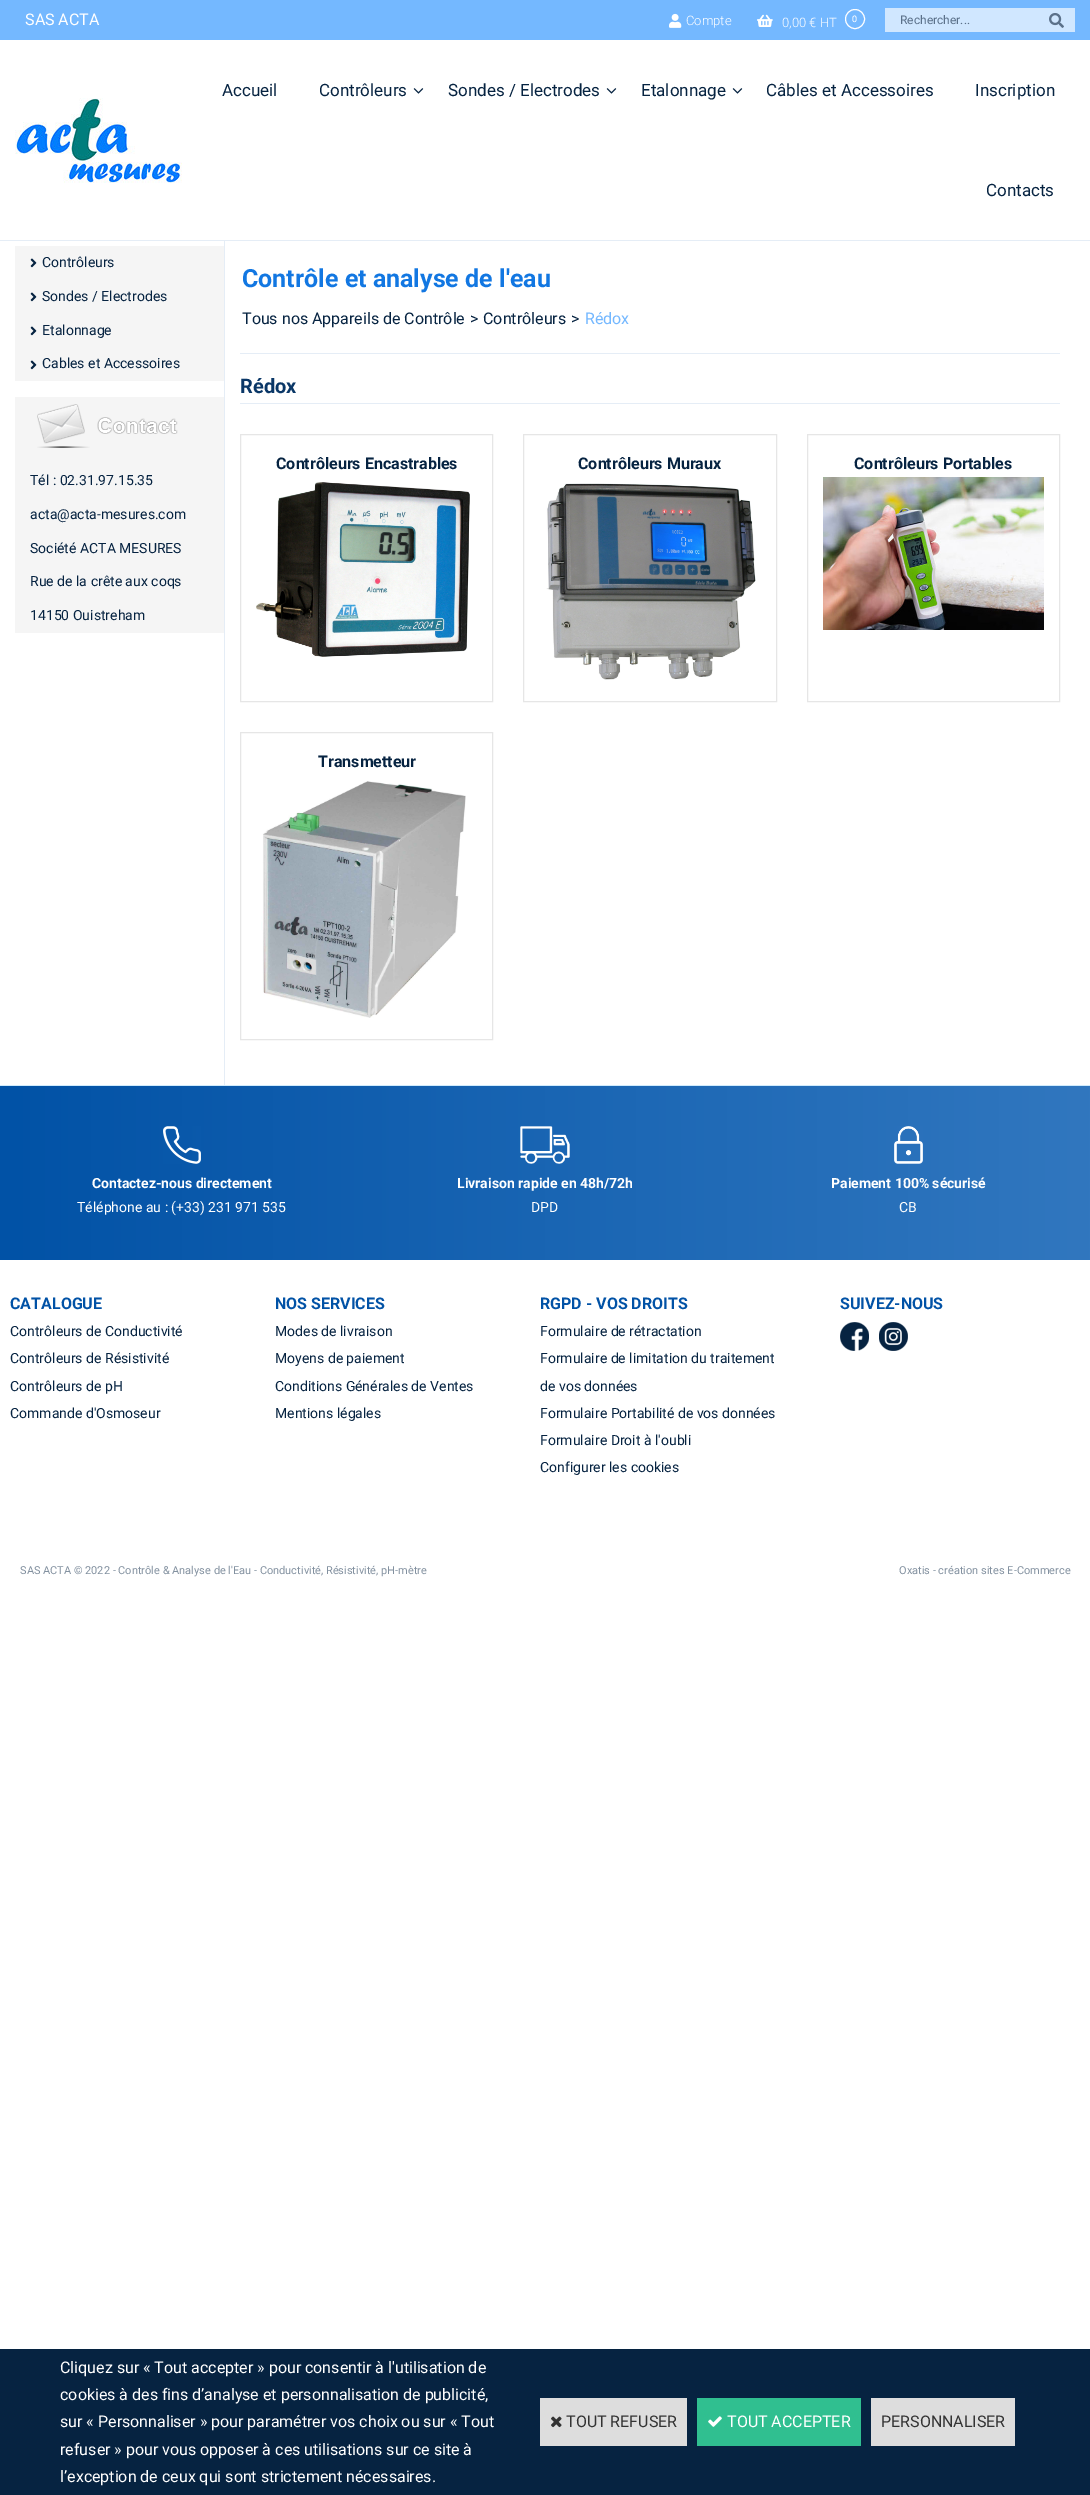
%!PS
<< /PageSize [1090 2495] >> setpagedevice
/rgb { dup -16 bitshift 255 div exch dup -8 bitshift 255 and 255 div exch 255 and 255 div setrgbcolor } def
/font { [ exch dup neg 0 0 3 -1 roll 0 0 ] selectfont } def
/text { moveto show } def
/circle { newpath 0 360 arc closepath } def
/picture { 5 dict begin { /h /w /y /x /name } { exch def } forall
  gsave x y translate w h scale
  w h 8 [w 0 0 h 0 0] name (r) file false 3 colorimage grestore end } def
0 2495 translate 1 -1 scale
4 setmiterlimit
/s1 { /Roboto-Regular 16 font 16#FFFFFF rgb } def
/s2 { /Roboto-Light 13 font 16#FFFFFF rgb } def
/s3 { /Roboto-Regular 9 font 16#FFFFFF rgb } def
/s4 { /Roboto-Regular 12 font 16#5B718A rgb } def
/s5 { /Roboto-Regular 17 font 16#062341 rgb } def
/s6 { /Roboto-Regular 14 font 16#062341 rgb } def
/s7 { /Roboto-Bold 25 font 16#1277E2 rgb } def
/s8 { /Roboto-Regular 16 font 16#062341 rgb } def
/s9 { /Roboto-Regular 16 font 16#74B8FF rgb } def
/s10 { /Roboto-Bold 20 font 16#0A3767 rgb } def
/s11 { /Roboto-Bold 16 font 16#062341 rgb } def
/s12 { /Roboto-Bold 14 font 16#FFFFFF rgb } def
/s13 { /Roboto-Regular 14 font 16#FFFFFF rgb } def
/s14 { /Roboto-Bold 16 font 16#0152A6 rgb } def
/s15 { /Roboto-Regular 11 font 16#8391A0 rgb } def
/s16 { /Roboto-Regular 16 font 16#333333 rgb } def
16#FFFFFF rgb
0 0 1090 2495 rectfill
16#E5EDF6 rgb
0 240 1090 1 rectfill
16#74B8FF rgb
0 0 1090 40 rectfill
s1
(SAS ACTA) 25 25 text
(pic1.raw) 669 13 13 15 picture
s2
(Compte) 686 25 text
(pic2.raw) 757 14 16 13 picture
(0,00 € HT) 782 27 text
855 19 9.5 circle stroke
s3
(0) 852 22 text
16#D0E7FF rgb
885 8 190 24 rectfill
s4
(Rechercher...) 900 24 text
(pic3.raw) 1049 13 15 15 picture
(pic4.raw) 15 98 167 85 picture
s5
(Accueil) 222 96 text
(Contrôleurs) 319 96 text
(pic5.raw) 413 88 11 6 picture
(Sondes / Electrodes) 448 96 text
(pic5.raw) 606 88 11 6 picture
(Etalonnage) 641 96 text
(pic5.raw) 732 88 11 6 picture
(Câbles et Accessoires) 766 96 text
(Inscription) 975 96 text
(Contacts) 986 196 text
16#E5EDF6 rgb
224 241 1 844 rectfill
16#F5F5F5 rgb
15 246 209 135 rectfill
(pic6.raw) 30 258 7 10 picture
s6
(Contrôleurs) 42 267 text
(pic6.raw) 30 292 7 10 picture
(Sondes / Electrodes) 42 301 text
(pic6.raw) 30 326 7 10 picture
(Etalonnage) 42 335 text
(pic6.raw) 30 360 7 10 picture
(Cables et Accessoires) 42 368 text
16#F5F5F5 rgb
15 397 209 236 rectfill
(pic7.raw) 37 404 141 44 picture
s6
(Tél : 02.31.97.15.35) 30 485 text
(acta@acta-mesures.com) 30 519 text
(Société ACTA MESURES) 30 553 text
(Rue de la crête aux coqs) 30 586 text
(14150 Ouistreham) 30 620 text
16#E5EDF6 rgb
240 353 820 1 rectfill
s7
(Contrôle et analyse de l'eau) 242 287 text
s8
(Tous nos Appareils de Contrôle) 242 324 text
(>) 470 324 text
(Contrôleurs) 483 324 text
(>) 571 324 text
s9
(Rédox) 585 324 text
16#E5EDF6 rgb
240 403 820 1 rectfill
s10
(Rédox) 240 393 text
16#E6E6E6 rgb
240.5 434.5 252 267 rectstroke
s11
(Contrôleurs Encastrables) 276 469 text
(pic8.raw) 256 482 214 175 picture
16#E6E6E6 rgb
523.5 434.5 253 267 rectstroke
s11
(Contrôleurs Muraux) 578 469 text
(pic9.raw) 546 483 210 197 picture
16#E6E6E6 rgb
807.5 434.5 252 267 rectstroke
s11
(Contrôleurs Portables) 854 469 text
(pic10.raw) 823 477 221 153 picture
16#E6E6E6 rgb
240.5 732.5 252 307 rectstroke
s11
(Transmetteur) 318 767 text
(pic11.raw) 261 781 205 237 picture
gsave 0 1086 moveto 1090 1086 lineto 1090 1260 lineto 0 1260 lineto closepath clip newpath
<< /ShadingType 2 /ColorSpace /DeviceRGB /Coords [0 1173 1090 1173] /Extend [true true] /Function << /FunctionType 2 /Domain [0 1] /C0 [0.004 0.322 0.651] /C1 [0.192 0.467 0.749] /N 1 >> >> shfill grestore
16#D0EBFC rgb
0 1085 1090 1 rectfill
(pic12.raw) 163 1126 38 38 picture
s12
(Contactez-nous directement) 92 1188 text
s13
(Téléphone au : \(+33\) 231 971 535) 77 1212 text
(pic13.raw) 520 1126 50 38 picture
s12
(Livraison rapide en 48h/72h) 457 1188 text
s13
(DPD) 531 1212 text
(pic14.raw) 894 1126 29 38 picture
s12
(Paiement 100% sécurisé) 831 1188 text
s13
(CB) 899 1212 text
s14
(CATALOGUE) 10 1309 text
s6
(Contrôleurs de Conductivité) 10 1336 text
(Contrôleurs de Résistivité) 10 1363 text
(Contrôleurs de pH) 10 1391 text
(Commande d'Osmoseur) 10 1418 text
s14
(NOS SERVICES) 275 1309 text
s6
(Modes de livraison) 275 1336 text
(Moyens de paiement) 275 1363 text
(Conditions Générales de Ventes) 275 1391 text
(Mentions légales) 275 1418 text
s14
(RGPD - VOS DROITS) 540 1309 text
s6
(Formulaire de rétractation) 540 1336 text
(Formulaire de limitation du traitement) 540 1363 text
(de vos données) 540 1391 text
(Formulaire Portabilité de vos données) 540 1418 text
(Formulaire Droit à l'oubli) 540 1445 text
(Configurer les cookies) 540 1472 text
s14
(SUIVEZ-NOUS) 840 1309 text
(pic15.raw) 840 1322 29 29 picture
(pic16.raw) 879 1322 29 29 picture
s15
(SAS ACTA © 2022 - Contrôle & Analyse de l'Eau - Conductivité, Résistivité, pH-mètre) 20 1574 text
(Oxatis - création sites E-Commerce) 899 1574 text
16#062341 rgb
0 2349 1090 146 rectfill
s1
(Cliquez sur « Tout accepter » pour consentir à l'utilisation de) 60 2373 text
(cookies à des fins d’analyse et personnalisation de publicité,) 60 2400 text
(sur « Personnaliser » pour paramétrer vos choix ou sur « Tout) 60 2427 text
(refuser » pour vous opposer à ces utilisations sur ce site à) 60 2455 text
(l’exception de ceux qui sont strictement nécessaires.) 60 2482 text
16#DDDDDD rgb
540 2398 147 48 rectfill
(pic17.raw) 551 2416 11 12 picture
s16
(TOUT REFUSER) 566 2427 text
16#30BF90 rgb
697 2398 164 48 rectfill
(pic18.raw) 708 2416 14 11 picture
s1
(TOUT ACCEPTER) 727 2427 text
16#DDDDDD rgb
871 2398 144 48 rectfill
s16
(PERSONNALISER) 881 2427 text
showpage
